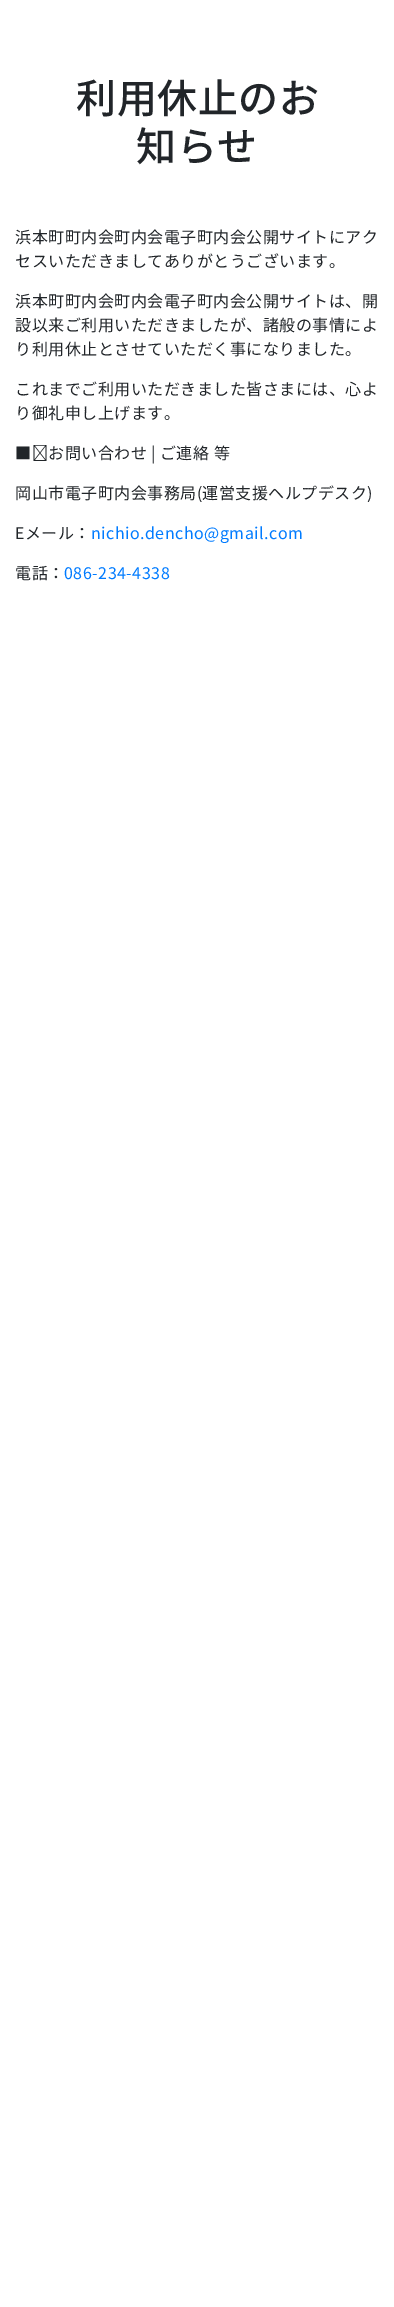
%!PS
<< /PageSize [394 2307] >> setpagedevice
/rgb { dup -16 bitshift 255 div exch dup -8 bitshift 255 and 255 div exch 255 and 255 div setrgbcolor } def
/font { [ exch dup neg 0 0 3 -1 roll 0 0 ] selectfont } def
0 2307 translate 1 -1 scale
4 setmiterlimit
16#FFFFFF rgb
0 0 394 2307 rectfill
/NotoSansJP-Medium 40 font
16#212529 rgb
76 113 moveto 0.5 0 (利用休止のお) ashow
136 161 moveto 0.5 0 (知らせ) ashow
/NotoSansJP-Regular 16 font
15 243 moveto 0.5 0 (浜本町町内会町内会電子町内会公開サイトにアク) ashow
15 267 moveto 0.5 0 (セスいただきましてありがとうございます。) ashow
15 307 moveto 0.5 0 (浜本町町内会町内会電子町内会公開サイトは、開) ashow
15 331 moveto 0.5 0 (設以来ご利用いただきましたが、諸般の事情によ) ashow
15 355 moveto 0.5 0 (り利用休止とさせていただく事になりました。) ashow
15 395 moveto 0.5 0 (これまでご利用いただきました皆さまには、心よ) ashow
15 419 moveto 0.5 0 (り御礼申し上げます。) ashow
15 459 moveto 0.5 0 (■ お問い合わせ | ご連絡 等) ashow
15 499 moveto 0.5 0 (岡山市電子町内会事務局\(運営支援ヘルプデスク\)) ashow
15 539 moveto 0.5 0 (Eメール：) ashow
16#007BFF rgb
91 539 moveto 0.5 0 (nichio.dencho@gmail.com) ashow
16#212529 rgb
15 579 moveto 0.5 0 (電話：) ashow
16#007BFF rgb
64 579 moveto 0.5 0 (086-234-4338) ashow
showpage
